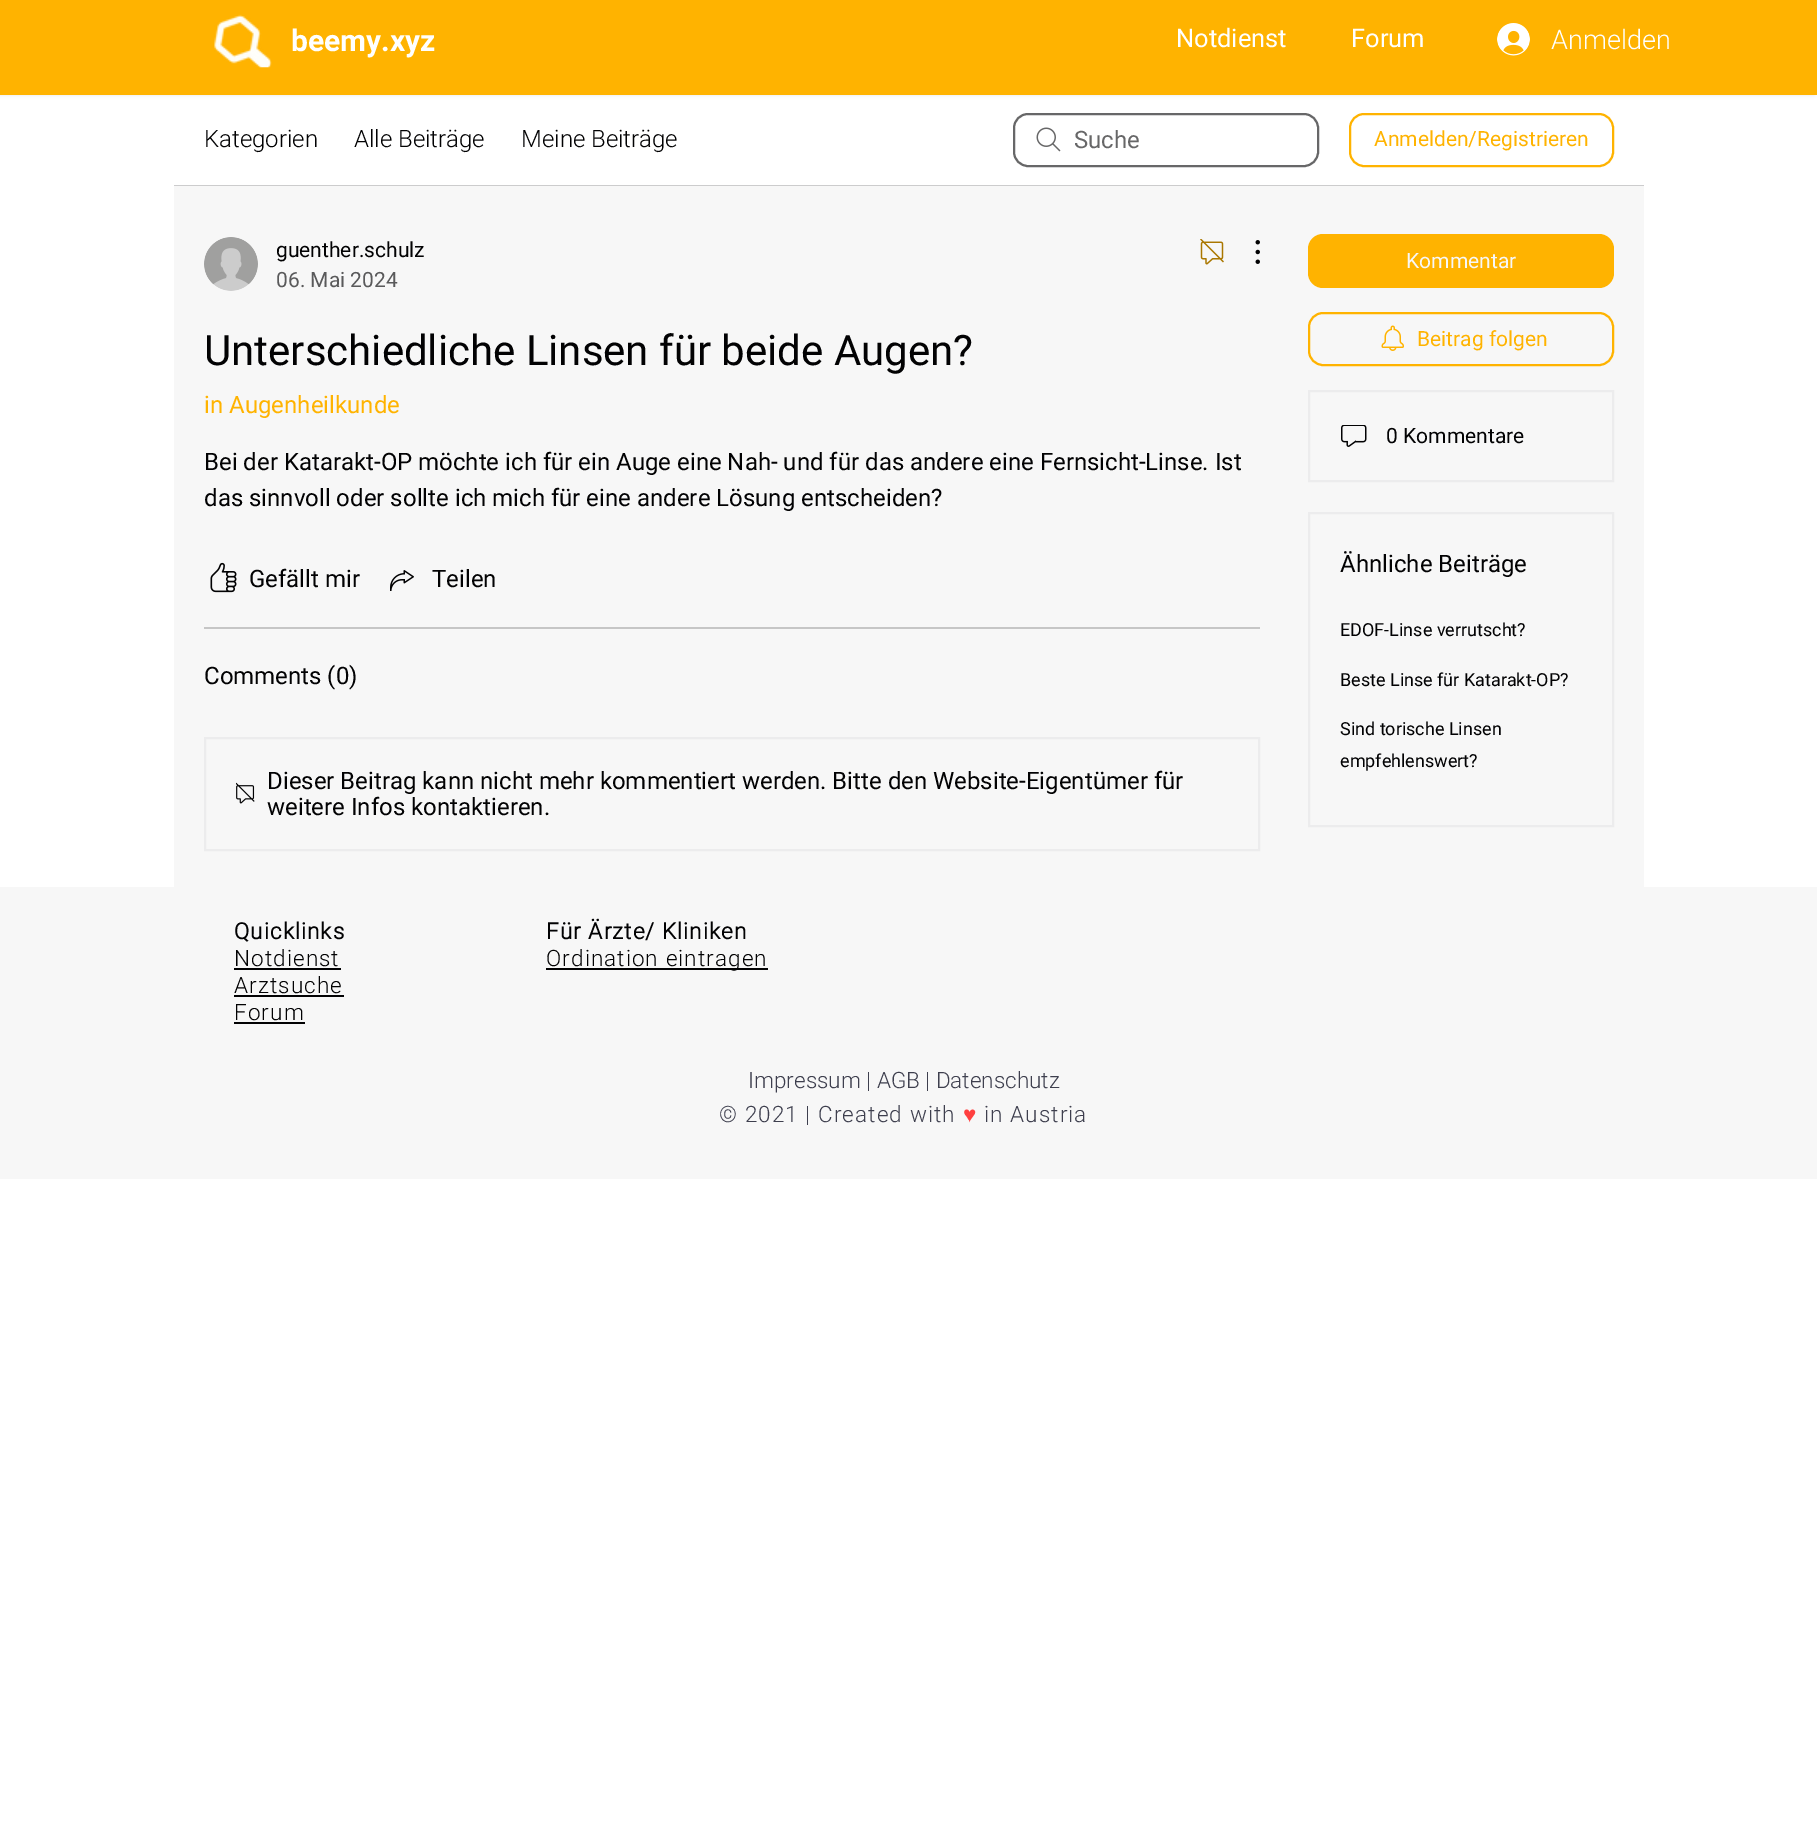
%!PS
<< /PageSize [1817 1838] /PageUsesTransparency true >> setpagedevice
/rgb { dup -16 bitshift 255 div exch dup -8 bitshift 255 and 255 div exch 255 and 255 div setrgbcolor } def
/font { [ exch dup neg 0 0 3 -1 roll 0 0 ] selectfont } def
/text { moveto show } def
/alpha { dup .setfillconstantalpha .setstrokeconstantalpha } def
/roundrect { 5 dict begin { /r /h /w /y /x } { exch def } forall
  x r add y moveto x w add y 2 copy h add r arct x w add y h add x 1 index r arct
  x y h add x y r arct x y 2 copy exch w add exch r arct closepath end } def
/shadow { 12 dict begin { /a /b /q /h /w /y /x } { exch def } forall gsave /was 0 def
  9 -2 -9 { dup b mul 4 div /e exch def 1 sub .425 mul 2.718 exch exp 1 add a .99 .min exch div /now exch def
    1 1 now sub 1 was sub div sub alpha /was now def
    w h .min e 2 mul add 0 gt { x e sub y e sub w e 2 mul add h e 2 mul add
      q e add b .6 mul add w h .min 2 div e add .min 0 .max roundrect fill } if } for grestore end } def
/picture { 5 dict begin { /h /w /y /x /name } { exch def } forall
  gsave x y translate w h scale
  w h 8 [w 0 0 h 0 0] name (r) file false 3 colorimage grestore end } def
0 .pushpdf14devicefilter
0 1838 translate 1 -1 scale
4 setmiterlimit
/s1 { /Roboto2-Bold 30 font 16#FFFFFF rgb } def
/s2 { /Roboto-Regular 25.5 font 16#FFFFFF rgb } def
/s3 { /Roboto-Light 27 font 16#FFFFFF rgb } def
/s4 { /Roboto-Light 24 font 16#020203 rgb } def
/s5 { /Roboto-Regular 24 font 16#676768 rgb } def
/s6 { /Roboto-Regular 21 font 16#FFB300 rgb } def
/s7 { /Roboto-Regular 21 font 16#020203 rgb } def
/s8 { /Roboto-Regular 21 font 16#5A5A5B rgb } def
/s9 { /Roboto-Regular 42 font 16#020203 rgb } def
/s10 { /Roboto-Regular 24 font 16#FFB300 rgb } def
/s11 { /Roboto-Regular 24 font 16#020203 rgb } def
/s12 { /Roboto-Regular 21 font 16#F7F7F7 rgb } def
/s13 { /Roboto-Regular 18 font 16#020203 rgb } def
/s14 { /Roboto-Light 22.5 font 16#3E3F4E rgb } def
16#FFFFFF rgb
0 0 1817 1838 rectfill
16#000000 rgb
-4 0 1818 95 0 2 0.1 shadow
16#FFB300 rgb
0 0 1817 95 rectfill
(pic1.raw) 214 14 58 54 picture
s1
(beemy.xyz) 291 51 text
s2
(Notdienst) 1176 47 text
(Forum) 1351 47 text
(pic2.raw) 1497 23 33 33 picture
s3
(Anmelden) 1551 49 text
16#CCCCCD rgb
174 185 1470 1 rectfill
s4
(Kategorien) 204 147 text
(Alle Beiträge) 354 147 text
(Meine Beiträge) 521 147 text
(pic3.raw) 1036 127 25 25 picture
16#676768 rgb
2 setlinewidth
1014 114 304 52 14 roundrect stroke
s5
(Suche) 1074 148 text
16#FFB300 rgb
1350 114 263 52 14 roundrect stroke
s6
(Anmelden/Registrieren) 1374 146 text
16#F7F7F7 rgb
174 186 1470 701 rectfill
(pic4.raw) 204 237 54 54 picture
s7
(guenther.schulz) 276 257 text
s8
(06. Mai 2024) 276 287 text
(pic5.raw) 1200 239 24 26 picture
(pic6.raw) 1255 240 5 24 picture
s9
(Unterschiedliche Linsen für beide Augen?) 204 365 text
s10
(in Augenheilkunde) 204 413 text
s11
(Bei der Katarakt-OP möchte ich für ein Auge eine Nah- und für das andere eine Fernsicht-Linse. Ist) 204 470 text
(das sinnvoll oder sollte ich mich für eine andere Lösung entscheiden?) 204 506 text
(pic7.raw) 210 562 27 31 picture
(Gefällt mir) 249 587 text
(pic8.raw) 390 570 24 21 picture
(Teilen) 432 587 text
16#C6C6C6 rgb
204 627 1056 2 rectfill
s11
(Comments \(0\)) 204 684 text
16#ECECED rgb
205 738 1054 112 rectstroke
(pic9.raw) 236 782 19 22 picture
s11
(Dieser Beitrag kann nicht mehr kommentiert werden. Bitte den Website-Eigentümer für) 267 789 text
(weitere Infos kontaktieren.) 267 815 text
16#FFB300 rgb
1308 234 306 54 15 roundrect fill
s12
(Kommentar) 1406 268 text
16#FFB300 rgb
1309 313 304 52 14 roundrect stroke
(pic10.raw) 1381 325 23 26 picture
(Beitrag folgen) 1417 346 text
16#ECECED rgb
1309 391 304 90 rectstroke
(pic11.raw) 1341 425 26 22 picture
s7
(0 Kommentare) 1386 443 text
16#ECECED rgb
1309 513 304 313 rectstroke
s11
(Ähnliche Beiträge) 1340 572 text
s13
(EDOF-Linse verrutscht?) 1340 636 text
(Beste Linse für Katarakt-OP?) 1340 686 text
(Sind torische Linsen) 1340 735 text
(empfehlenswert?) 1340 767 text
16#F7F7F7 rgb
0 887 1817 292 rectfill
/Roboto-Bold 22.5 font
16#020203 rgb
234 939 moveto 1.1 0 (Quicklinks) ashow
/Roboto-Light 22.5 font
234 966 moveto 1.1 0 (Notdienst) ashow
234 968 107 2 rectfill
234 993 moveto 1.1 0 (Arztsuche) ashow
234 995 110 2 rectfill
234 1020 moveto 1.1 0 (Forum) ashow
234 1022 71 2 rectfill
/Roboto-Bold 22.5 font
546 939 moveto 1.1 0 (Für Ärzte/ Kliniken) ashow
546 968 222 2 rectfill
/Roboto-Light 22.5 font
546 966 moveto 1.1 0 (Ordination eintragen) ashow
s14
(Impressum | AGB | Datenschutz) 748 1088 text
719 1122 moveto 1.1 0 (© 2021 | Created with) ashow
/LiberationSerif-Regular 22.5 font
16#FF4040 rgb
963 1122 moveto 1.1 0 (♥) ashow
/Roboto-Light 22.5 font
16#3E3F4E rgb
984 1122 moveto 1.1 0 (in Austria) ashow
.poppdf14devicefilter showpage
